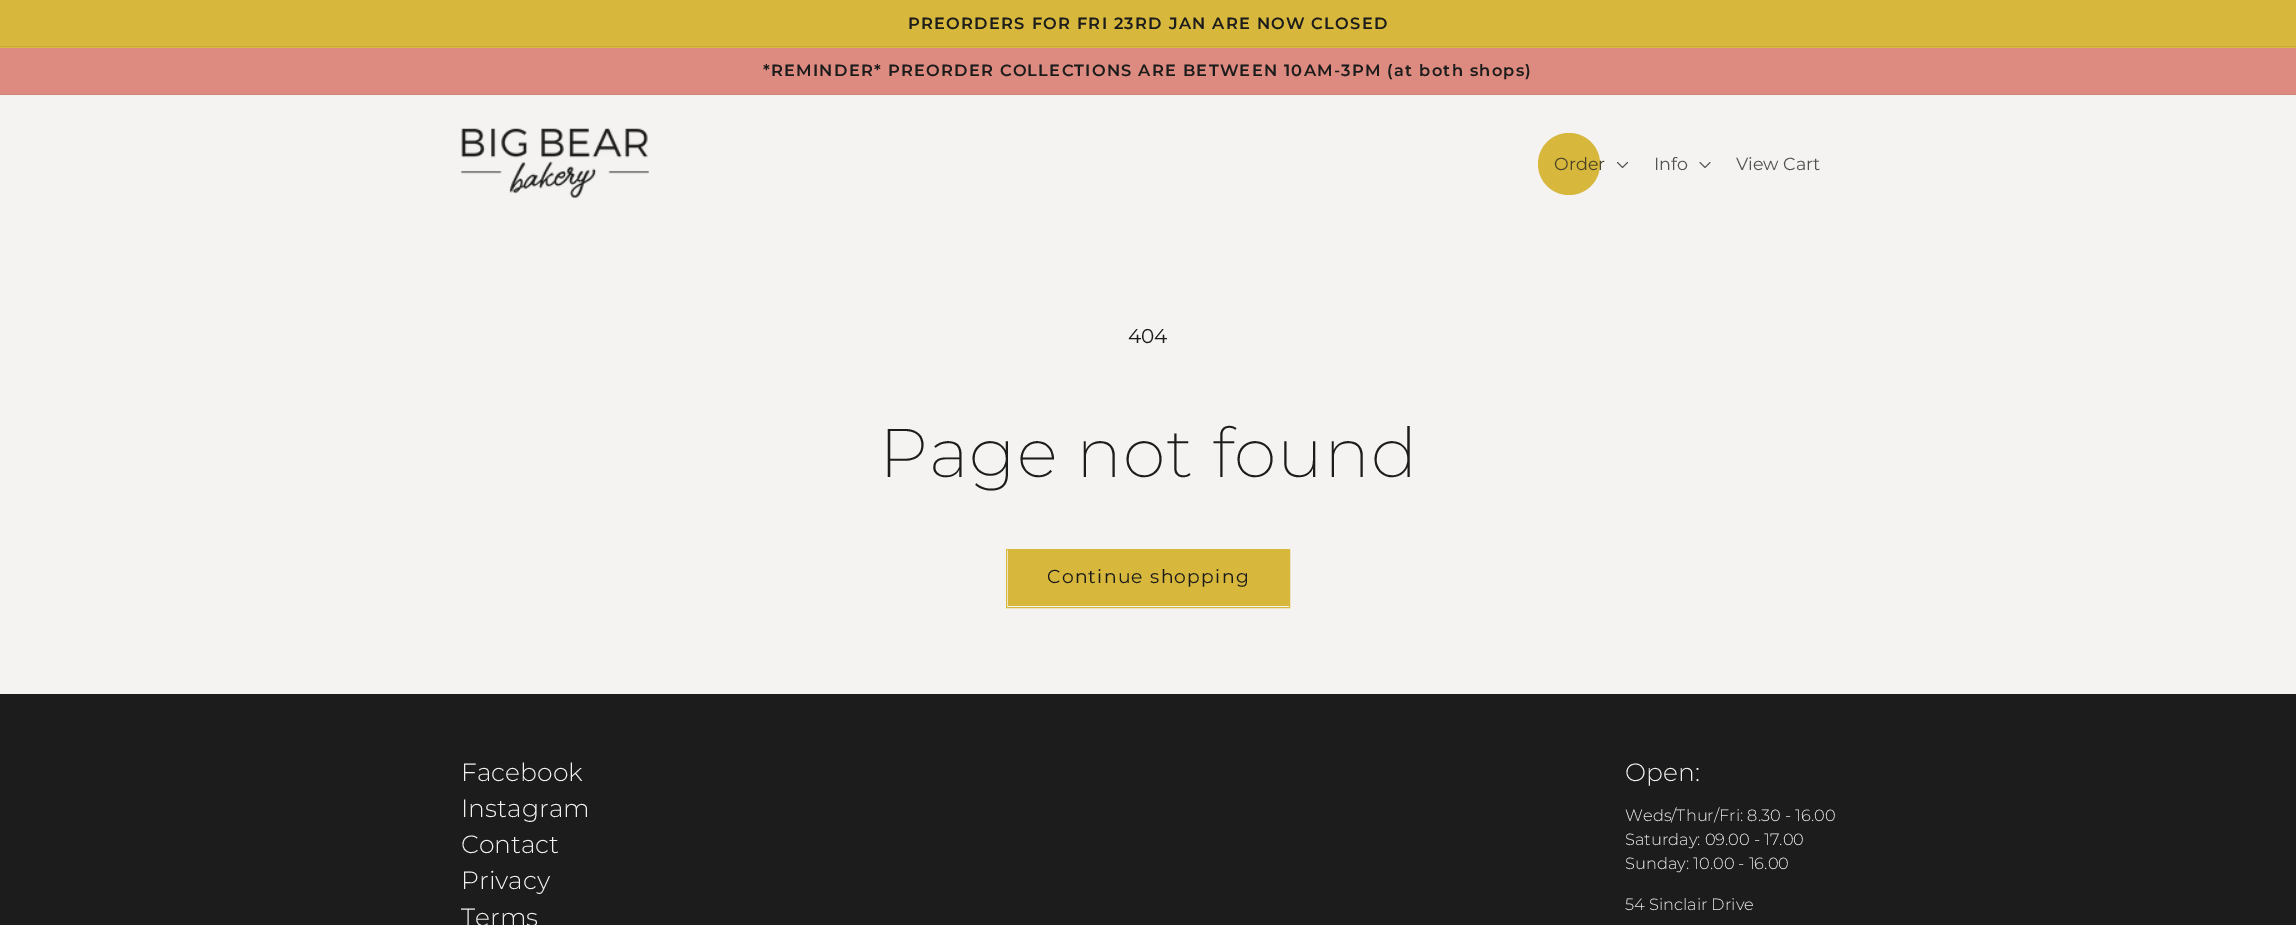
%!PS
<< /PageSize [2296 925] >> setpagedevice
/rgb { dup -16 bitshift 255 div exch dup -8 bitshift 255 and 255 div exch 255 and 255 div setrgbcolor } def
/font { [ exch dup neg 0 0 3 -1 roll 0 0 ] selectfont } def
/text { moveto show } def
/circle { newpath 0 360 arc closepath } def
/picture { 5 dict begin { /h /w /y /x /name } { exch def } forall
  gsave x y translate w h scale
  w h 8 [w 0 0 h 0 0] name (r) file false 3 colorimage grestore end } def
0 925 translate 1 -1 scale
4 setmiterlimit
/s1 { /Montserrat-Regular 17.5 font 16#4B4428 rgb } def
/s2 { /Montserrat-Regular 17.5 font 16#525251 rgb } def
/s3 { /Montserrat-Regular 20 font 16#1B1C1B rgb } def
/s4 { /Montserrat-Light 25 font 16#F4F2F1 rgb } def
/s5 { /Montserrat-Light 16.25 font 16#F4F2F1 rgb } def
16#F4F3F1 rgb
0 0 2296 925 rectfill
16#D7B73C rgb
0 0 2296 48 rectfill
16#C8AB39 rgb
0 46 2296 1 rectfill
/Montserrat-SemiBold 16.25 font
16#1B1C1B rgb
908 29 moveto 1.25 0 (PREORDERS FOR FRI 23RD JAN ARE NOW CLOSED) ashow
16#DD8B80 rgb
0 48 2296 46 rectfill
16#CE8278 rgb
0 94 2296 1 rectfill
16#1B1C1B rgb
763 76 moveto 1.25 0 (*REMINDER* PREORDER COLLECTIONS ARE BETWEEN 10AM-3PM \(at both shops\)) ashow
(pic1.raw) 461 128 188 70 picture
16#D7B73C rgb
1569 164 31 circle fill
s1
(Order) 1554 170 text
(pic2.raw) 1616 161 13 8 picture
s2
(Info) 1654 170 text
(pic3.raw) 1699 162 12 6 picture
(View Cart) 1736 170 text
s3
(404) 1128 343 text
/Montserrat-ExtraLight 68.75 font
879 477 moveto 0.75 0 (Page not found) ashow
16#D7B73C rgb
1006.5 549.5 283 58 rectstroke
1008 550 281 56 rectfill
/Montserrat-Regular 18.75 font
16#1B1C1B rgb
1047 583 moveto 1.25 0 (Continue shopping) ashow
0 694 2296 231 rectfill
s4
(Facebook) 461 781 text
(Instagram) 461 817 text
(Contact) 461 853 text
(Privacy) 461 889 text
(Terms) 461 926 text
(Open:) 1625 781 text
s5
(Weds/Thur/Fri: 8.30 - 16.00) 1625 821 text
(Saturday: 09.00 - 17.00) 1625 845 text
(Sunday: 10.00 - 16.00) 1625 869 text
(54 Sinclair Drive) 1625 910 text
showpage
